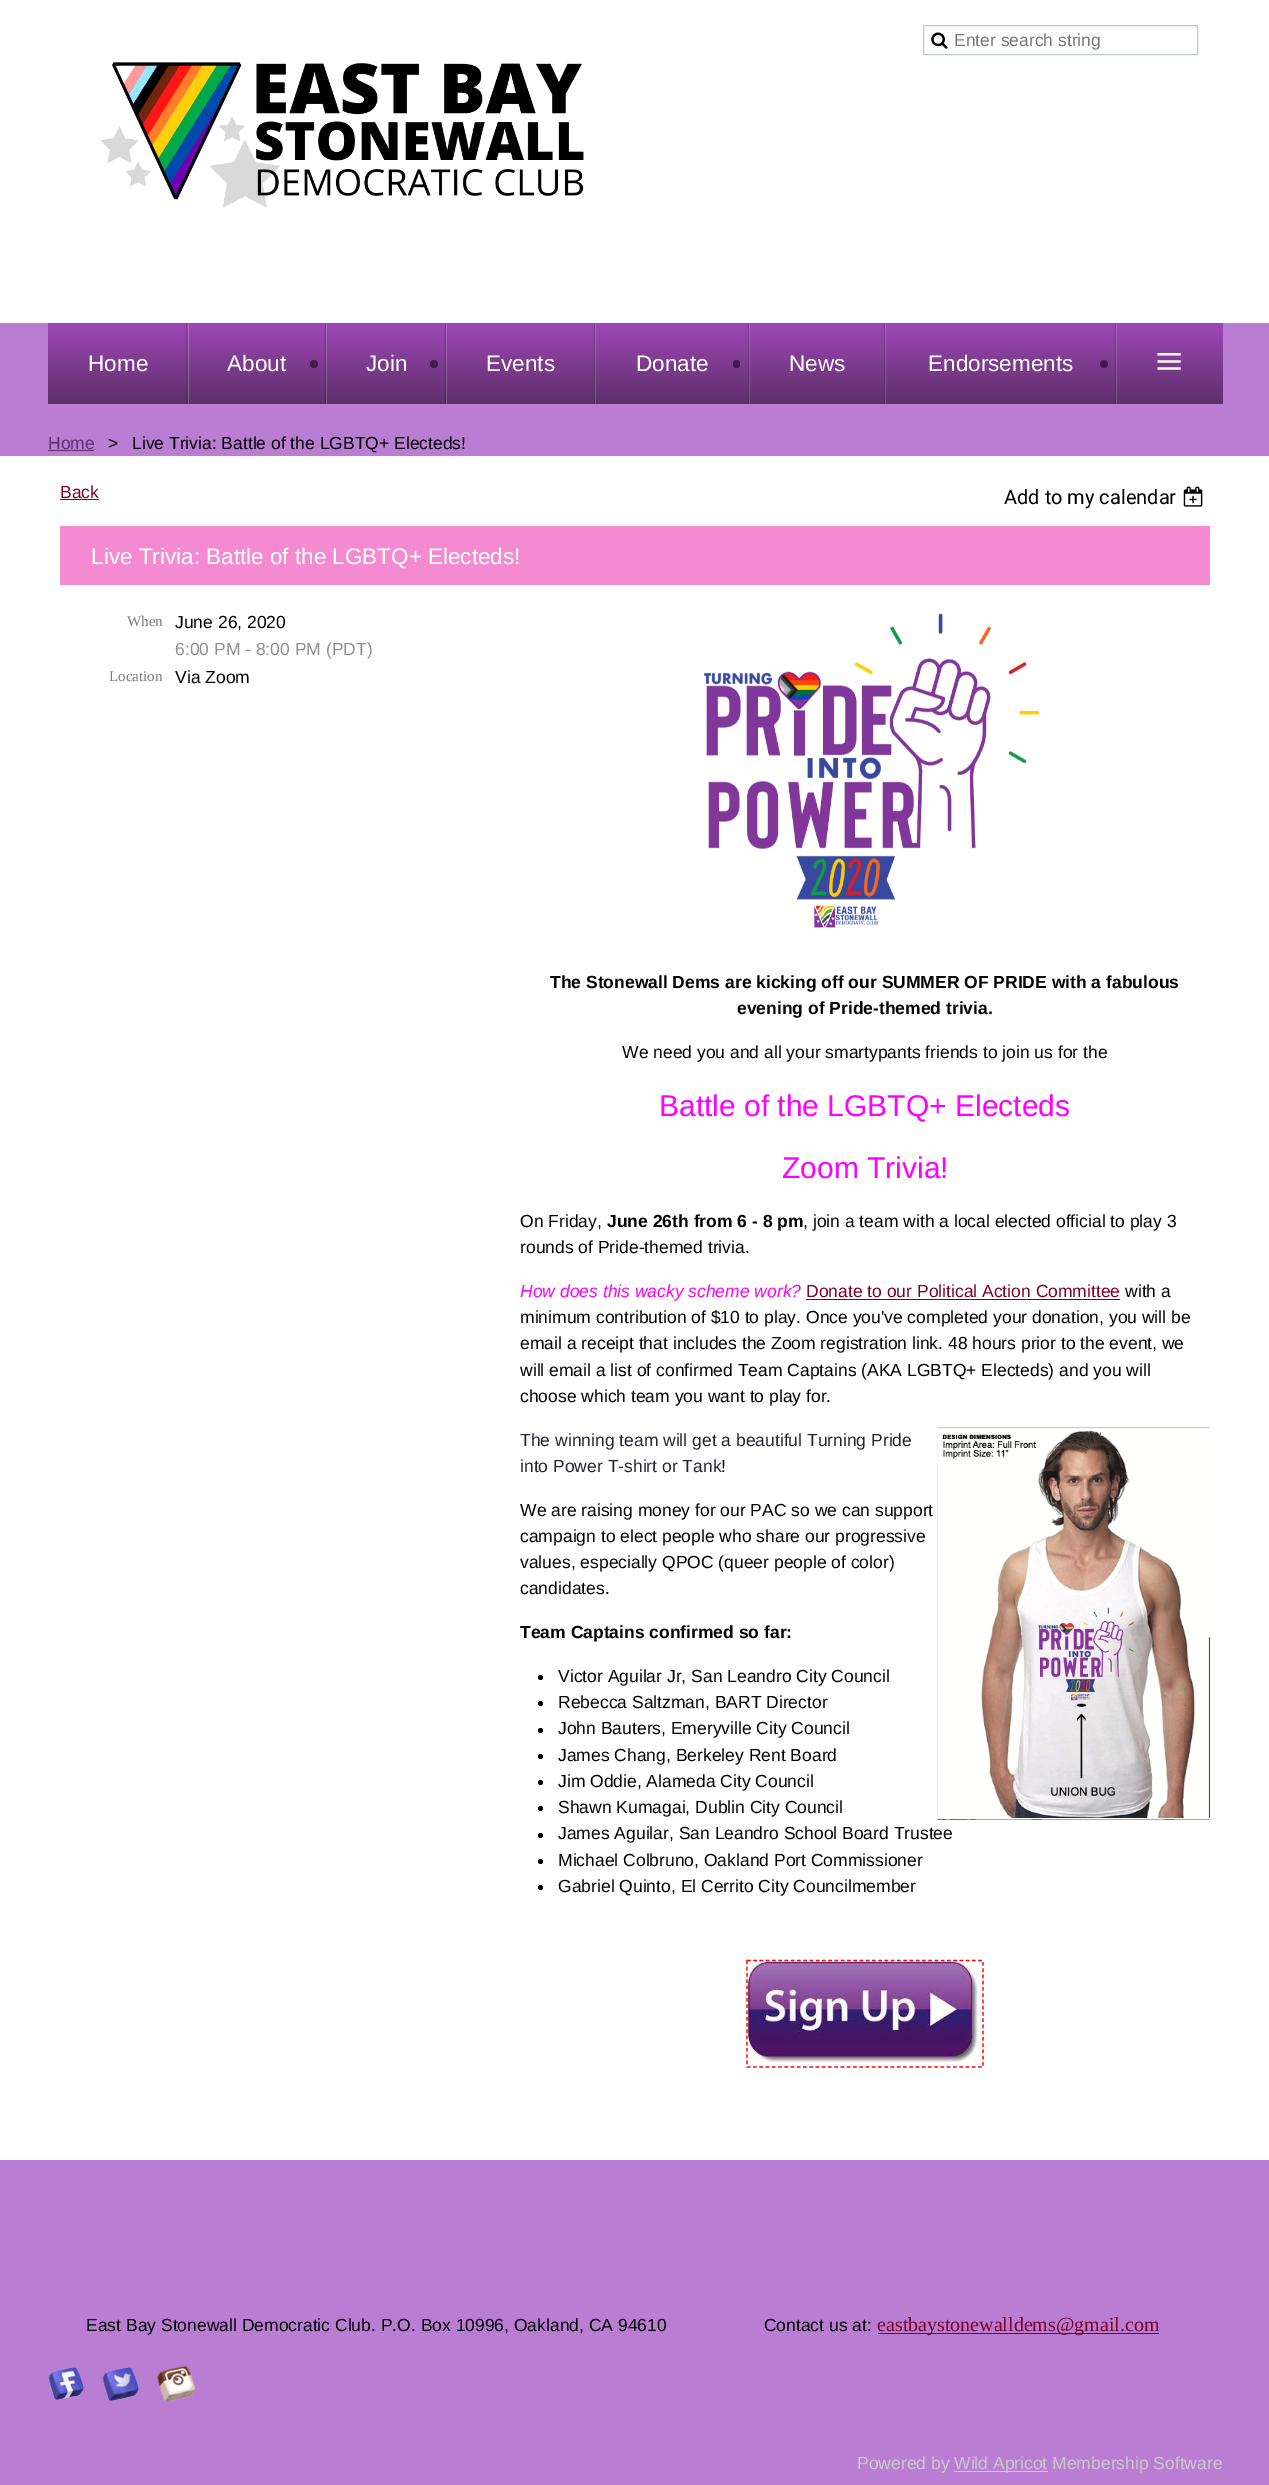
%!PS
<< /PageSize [1269 2485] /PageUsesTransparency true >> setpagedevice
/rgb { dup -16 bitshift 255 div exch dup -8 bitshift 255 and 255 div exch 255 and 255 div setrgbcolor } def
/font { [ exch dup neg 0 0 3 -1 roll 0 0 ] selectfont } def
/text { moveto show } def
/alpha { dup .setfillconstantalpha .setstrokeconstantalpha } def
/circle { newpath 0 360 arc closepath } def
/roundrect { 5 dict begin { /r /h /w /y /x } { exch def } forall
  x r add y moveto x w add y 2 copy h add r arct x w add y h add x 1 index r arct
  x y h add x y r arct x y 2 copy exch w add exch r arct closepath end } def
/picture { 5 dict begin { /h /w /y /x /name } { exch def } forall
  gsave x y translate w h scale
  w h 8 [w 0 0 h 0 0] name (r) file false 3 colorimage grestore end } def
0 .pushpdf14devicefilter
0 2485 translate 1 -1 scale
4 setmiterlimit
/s1 { /LiberationSans-Regular 17.5 font 16#757575 rgb } def
/s2 { /LiberationSans-Regular 22.5 font 16#FFFFFF rgb } def
/s3 { /LiberationSerif-Regular 50 font 16#FFFFFF rgb } def
/s4 { /LiberationSans-Regular 17.5 font 16#5D3069 rgb } def
/s5 { /LiberationSans-Regular 17.5 font 16#000000 rgb } def
/s6 { /LiberationSans-Regular 17.5 font 16#7A0026 rgb } def
/s7 { /Roboto-Regular 20 font 16#000000 rgb } def
/s8 { /LiberationSerif-Regular 15 font 16#7C7C7C rgb } def
/s9 { /LiberationSans-Regular 17.5 font 16#909090 rgb } def
/s10 { /LiberationSans-Bold 17.5 font 16#000000 rgb } def
/s11 { /LiberationSans-Regular 30 font 16#FF00FF rgb } def
/s12 { /LiberationSans-Italic 17.5 font 16#FF00FF rgb } def
/s13 { /LiberationSans-Regular 17.5 font 16#232333 rgb } def
/s14 { /LiberationSerif-Regular 20 font 16#7A0026 rgb } def
/s15 { /LiberationSans-Regular 17.5 font 16#CACACA rgb } def
16#B97DD3 rgb
0 0 1269 2485 rectfill
16#FFFFFF rgb
0 0 1269 323 rectfill
16#C1CBCC rgb
923.5 25.5 274 29 rectstroke
(pic1.raw) 931 32 17 17 picture
s1
(Enter search string) 954 46 text
(pic2.raw) 100 59 484 149 picture
gsave 48 323 moveto 188 323 lineto 188 404 lineto 48 404 lineto closepath clip newpath
<< /ShadingType 2 /ColorSpace /DeviceRGB /Coords [118 323 118 404] /Extend [true true] /Function << /FunctionType 2 /Domain [0 1] /C0 [0.624 0.278 0.718] /C1 [0.365 0.188 0.412] /N 1 >> >> shfill grestore
gsave 186 323 moveto 187 323 lineto 187 404 lineto 186 404 lineto closepath clip newpath
<< /ShadingType 2 /ColorSpace /DeviceRGB /Coords [118 323 118 404] /Extend [true true] /Function << /FunctionType 2 /Domain [0 1] /C0 [0.498 0.224 0.573] /C1 [0.29 0.149 0.329] /N 1 >> >> shfill grestore
s2
(Home) 88 371 text
gsave 189 323 moveto 325 323 lineto 325 404 lineto 189 404 lineto closepath clip newpath
<< /ShadingType 2 /ColorSpace /DeviceRGB /Coords [257 323 257 404] /Extend [true true] /Function << /FunctionType 2 /Domain [0 1] /C0 [0.624 0.278 0.718] /C1 [0.365 0.188 0.412] /N 1 >> >> shfill grestore
gsave 325 323 moveto 326 323 lineto 326 404 lineto 325 404 lineto closepath clip newpath
<< /ShadingType 2 /ColorSpace /DeviceRGB /Coords [257 323 257 404] /Extend [true true] /Function << /FunctionType 2 /Domain [0 1] /C0 [0.498 0.224 0.573] /C1 [0.29 0.149 0.329] /N 1 >> >> shfill grestore
gsave 188 323 moveto 189 323 lineto 189 404 lineto 188 404 lineto closepath clip newpath
<< /ShadingType 2 /ColorSpace /DeviceRGB /Coords [257 323 257 404] /Extend [true true] /Function << /FunctionType 2 /Domain [0 1] /C0 [0.698 0.424 0.773] /C1 [0.49 0.349 0.529] /N 1 >> >> shfill grestore
(About) 227 371 text
0.5 alpha
16#000000 rgb
314 364 4 circle fill
1 alpha
gsave 327 323 moveto 445 323 lineto 445 404 lineto 327 404 lineto closepath clip newpath
<< /ShadingType 2 /ColorSpace /DeviceRGB /Coords [386 323 386 404] /Extend [true true] /Function << /FunctionType 2 /Domain [0 1] /C0 [0.624 0.278 0.718] /C1 [0.365 0.188 0.412] /N 1 >> >> shfill grestore
gsave 445 323 moveto 446 323 lineto 446 404 lineto 445 404 lineto closepath clip newpath
<< /ShadingType 2 /ColorSpace /DeviceRGB /Coords [386 323 386 404] /Extend [true true] /Function << /FunctionType 2 /Domain [0 1] /C0 [0.498 0.224 0.573] /C1 [0.29 0.149 0.329] /N 1 >> >> shfill grestore
gsave 326 323 moveto 327 323 lineto 327 404 lineto 326 404 lineto closepath clip newpath
<< /ShadingType 2 /ColorSpace /DeviceRGB /Coords [386 323 386 404] /Extend [true true] /Function << /FunctionType 2 /Domain [0 1] /C0 [0.698 0.424 0.773] /C1 [0.49 0.349 0.529] /N 1 >> >> shfill grestore
s2
(Join) 366 371 text
0.5 alpha
16#000000 rgb
434 364 4 circle fill
1 alpha
gsave 447 323 moveto 594 323 lineto 594 404 lineto 447 404 lineto closepath clip newpath
<< /ShadingType 2 /ColorSpace /DeviceRGB /Coords [521 323 521 404] /Extend [true true] /Function << /FunctionType 2 /Domain [0 1] /C0 [0.624 0.278 0.718] /C1 [0.365 0.188 0.412] /N 1 >> >> shfill grestore
gsave 594 323 moveto 595 323 lineto 595 404 lineto 594 404 lineto closepath clip newpath
<< /ShadingType 2 /ColorSpace /DeviceRGB /Coords [521 323 521 404] /Extend [true true] /Function << /FunctionType 2 /Domain [0 1] /C0 [0.498 0.224 0.573] /C1 [0.29 0.149 0.329] /N 1 >> >> shfill grestore
gsave 446 323 moveto 447 323 lineto 447 404 lineto 446 404 lineto closepath clip newpath
<< /ShadingType 2 /ColorSpace /DeviceRGB /Coords [521 323 521 404] /Extend [true true] /Function << /FunctionType 2 /Domain [0 1] /C0 [0.698 0.424 0.773] /C1 [0.49 0.349 0.529] /N 1 >> >> shfill grestore
s2
(Events) 486 371 text
gsave 596 323 moveto 748 323 lineto 748 404 lineto 596 404 lineto closepath clip newpath
<< /ShadingType 2 /ColorSpace /DeviceRGB /Coords [672 323 672 404] /Extend [true true] /Function << /FunctionType 2 /Domain [0 1] /C0 [0.624 0.278 0.718] /C1 [0.365 0.188 0.412] /N 1 >> >> shfill grestore
gsave 748 323 moveto 749 323 lineto 749 404 lineto 748 404 lineto closepath clip newpath
<< /ShadingType 2 /ColorSpace /DeviceRGB /Coords [672 323 672 404] /Extend [true true] /Function << /FunctionType 2 /Domain [0 1] /C0 [0.498 0.224 0.573] /C1 [0.29 0.149 0.329] /N 1 >> >> shfill grestore
gsave 595 323 moveto 596 323 lineto 596 404 lineto 595 404 lineto closepath clip newpath
<< /ShadingType 2 /ColorSpace /DeviceRGB /Coords [672 323 672 404] /Extend [true true] /Function << /FunctionType 2 /Domain [0 1] /C0 [0.698 0.424 0.773] /C1 [0.49 0.349 0.529] /N 1 >> >> shfill grestore
(Donate) 636 371 text
0.5 alpha
16#000000 rgb
733 360 7 8 3.5 roundrect fill
1 alpha
gsave 750 323 moveto 884 323 lineto 884 404 lineto 750 404 lineto closepath clip newpath
<< /ShadingType 2 /ColorSpace /DeviceRGB /Coords [817 323 817 404] /Extend [true true] /Function << /FunctionType 2 /Domain [0 1] /C0 [0.624 0.278 0.718] /C1 [0.365 0.188 0.412] /N 1 >> >> shfill grestore
gsave 884 323 moveto 885 323 lineto 885 404 lineto 884 404 lineto closepath clip newpath
<< /ShadingType 2 /ColorSpace /DeviceRGB /Coords [817 323 817 404] /Extend [true true] /Function << /FunctionType 2 /Domain [0 1] /C0 [0.498 0.224 0.573] /C1 [0.29 0.149 0.329] /N 1 >> >> shfill grestore
gsave 749 323 moveto 750 323 lineto 750 404 lineto 749 404 lineto closepath clip newpath
<< /ShadingType 2 /ColorSpace /DeviceRGB /Coords [817 323 817 404] /Extend [true true] /Function << /FunctionType 2 /Domain [0 1] /C0 [0.698 0.424 0.773] /C1 [0.49 0.349 0.529] /N 1 >> >> shfill grestore
s2
(News) 789 371 text
gsave 886 323 moveto 1115 323 lineto 1115 404 lineto 886 404 lineto closepath clip newpath
<< /ShadingType 2 /ColorSpace /DeviceRGB /Coords [1001 323 1001 404] /Extend [true true] /Function << /FunctionType 2 /Domain [0 1] /C0 [0.624 0.278 0.718] /C1 [0.365 0.188 0.412] /N 1 >> >> shfill grestore
gsave 1115 323 moveto 1116 323 lineto 1116 404 lineto 1115 404 lineto closepath clip newpath
<< /ShadingType 2 /ColorSpace /DeviceRGB /Coords [1001 323 1001 404] /Extend [true true] /Function << /FunctionType 2 /Domain [0 1] /C0 [0.498 0.224 0.573] /C1 [0.29 0.149 0.329] /N 1 >> >> shfill grestore
gsave 885 323 moveto 886 323 lineto 886 404 lineto 885 404 lineto closepath clip newpath
<< /ShadingType 2 /ColorSpace /DeviceRGB /Coords [1001 323 1001 404] /Extend [true true] /Function << /FunctionType 2 /Domain [0 1] /C0 [0.698 0.424 0.773] /C1 [0.49 0.349 0.529] /N 1 >> >> shfill grestore
(Endorsements) 928 371 text
0.5 alpha
16#000000 rgb
1104 364 4 circle fill
1 alpha
gsave 1117 323 moveto 1223 323 lineto 1223 404 lineto 1117 404 lineto closepath clip newpath
<< /ShadingType 2 /ColorSpace /DeviceRGB /Coords [1169 323 1169 404] /Extend [true true] /Function << /FunctionType 2 /Domain [0 1] /C0 [0.624 0.278 0.718] /C1 [0.365 0.188 0.412] /N 1 >> >> shfill grestore
gsave 1116 323 moveto 1117 323 lineto 1117 404 lineto 1116 404 lineto closepath clip newpath
<< /ShadingType 2 /ColorSpace /DeviceRGB /Coords [1169 323 1169 404] /Extend [true true] /Function << /FunctionType 2 /Domain [0 1] /C0 [0.698 0.424 0.773] /C1 [0.49 0.349 0.529] /N 1 >> >> shfill grestore
s3
(≡) 1155 378 text
s4
(Home) 48 449 text
48 450 46 1 rectfill
s5
(>) 108 449 text
(Live Trivia: Battle of the LGBTQ+ Electeds!) 132 449 text
16#FFFFFF rgb
0 456 1269 1704 rectfill
s6
(Back) 60 498 text
60 499 39 1 rectfill
s7
(Add to my calendar) 1004 504 text
(pic3.raw) 1183 486 20 21 picture
16#F48BD0 rgb
60 526 1150 59 rectfill
s2
(Live Trivia: Battle of the LGBTQ+ Electeds!) 91 564 text
s8
(When) 127 626 text
s5
(June 26, 2020) 175 628 text
s9
(6:00 PM - 8:00 PM \(PDT\)) 175 655 text
s8
(Location) 109 681 text
s5
(Via Zoom) 175 683 text
(pic4.raw) 704 613 336 315 picture
s10
(The Stonewall Dems are kicking off our SUMMER OF PRIDE with a fabulous) 550 988 text
(evening of Pride-themed trivia.) 737 1014 text
s5
(We need you and all your smartypants friends to join us for the) 622 1058 text
s11
(Battle of the LGBTQ+ Electeds) 659 1116 text
(Zoom Trivia!) 782 1178 text
s5
(On Friday,) 520 1227 text
s10
(June 26th from 6 - 8 pm) 607 1227 text
s5
(, join a team with a local elected official to play 3) 803 1227 text
(rounds of Pride-themed trivia.) 520 1253 text
s12
(How does this wacky scheme work?) 520 1297 text
s6
(Donate to our Political Action Committee) 806 1297 text
806 1299 314 1 rectfill
s5
(with a) 1125 1297 text
(minimum contribution of $10 to play. Once you've completed your donation, you will be) 520 1323 text
(email a receipt that includes the Zoom registration link. 48 hours prior to the event, we) 520 1349 text
(will email a list of confirmed Team Captains \(AKA LGBTQ+ Electeds\) and you will) 520 1376 text
(choose which team you want to play for.) 520 1402 text
s13
(The winning team will get a beautiful Turning Pride) 520 1446 text
(into Power T-shirt or Tank) 520 1472 text
s5
(!) 721 1472 text
(pic5.raw) 937 1427 273 393 picture
(We are raising money for our PAC so we can support) 520 1516 text
(campaign to elect people who share our progressive) 520 1542 text
(values, especially QPOC \(queer people of color\)) 520 1568 text
(candidates.) 520 1594 text
s10
(Team Captains confirmed so far:) 520 1638 text
540.5 1677.5 2.5 circle fill
s5
(Victor Aguilar Jr, San Leandro City Council) 558 1682 text
540.5 1703.5 2.5 circle fill
(Rebecca Saltzman, BART Director) 558 1708 text
540.5 1730.5 2.5 circle fill
(John Bauters, Emeryville City Council) 558 1734 text
540.5 1756.5 2.5 circle fill
(James Chang, Berkeley Rent Board) 558 1761 text
540.5 1782.5 2.5 circle fill
(Jim Oddie, Alameda City Council) 558 1787 text
540.5 1808.5 2.5 circle fill
(Shawn Kumagai, Dublin City Council) 558 1813 text
540.5 1835.5 2.5 circle fill
(James Aguilar, San Leandro School Board Trustee) 558 1839 text
540.5 1861.5 2.5 circle fill
(Michael Colbruno, Oakland Port Commissioner) 558 1866 text
540.5 1887.5 2.5 circle fill
(Gabriel Quinto, El Cerrito City Councilmember) 558 1892 text
(pic6.raw) 747 1961 235 101 picture
16#FF0000 rgb
1.2 setlinewidth
[3.75 2.5] 0 setdash
747 1960.5 moveto 983 1960.5 lineto 983 2067 lineto 747 2067 lineto closepath stroke
s5
(East Bay Stonewall Democratic Club. P.O. Box 10996, Oakland, CA 94610                    Contact us at:) 86 2331 text
16#7A0026 rgb
878 2333 281 1 rectfill
s14
(eastbaystonewalldems@gmail.com) 877 2331 text
(pic7.raw) 48 2367 37 33 picture
(pic8.raw) 102 2367 38 34 picture
(pic9.raw) 157 2366 38 36 picture
s15
(Powered by) 857 2469 text
954 2471 94 1 rectfill
(Wild Apricot Membership Software) 954 2469 text
.poppdf14devicefilter showpage
